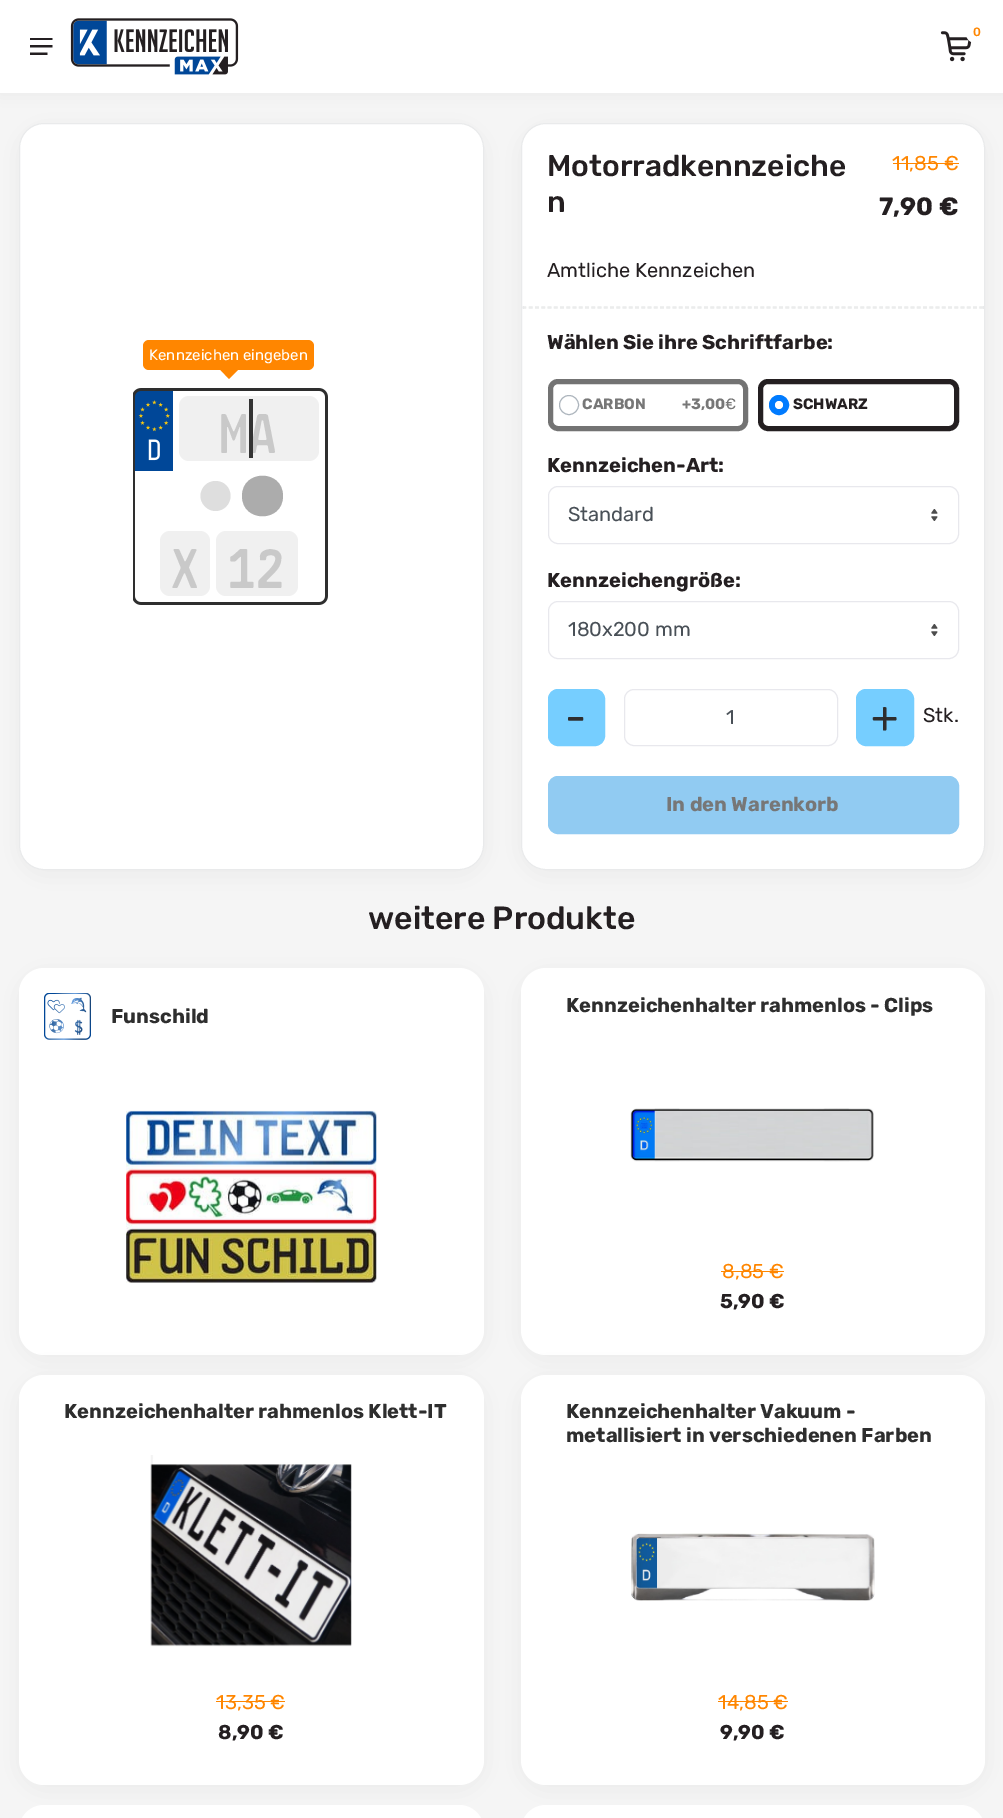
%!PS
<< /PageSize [1003 1818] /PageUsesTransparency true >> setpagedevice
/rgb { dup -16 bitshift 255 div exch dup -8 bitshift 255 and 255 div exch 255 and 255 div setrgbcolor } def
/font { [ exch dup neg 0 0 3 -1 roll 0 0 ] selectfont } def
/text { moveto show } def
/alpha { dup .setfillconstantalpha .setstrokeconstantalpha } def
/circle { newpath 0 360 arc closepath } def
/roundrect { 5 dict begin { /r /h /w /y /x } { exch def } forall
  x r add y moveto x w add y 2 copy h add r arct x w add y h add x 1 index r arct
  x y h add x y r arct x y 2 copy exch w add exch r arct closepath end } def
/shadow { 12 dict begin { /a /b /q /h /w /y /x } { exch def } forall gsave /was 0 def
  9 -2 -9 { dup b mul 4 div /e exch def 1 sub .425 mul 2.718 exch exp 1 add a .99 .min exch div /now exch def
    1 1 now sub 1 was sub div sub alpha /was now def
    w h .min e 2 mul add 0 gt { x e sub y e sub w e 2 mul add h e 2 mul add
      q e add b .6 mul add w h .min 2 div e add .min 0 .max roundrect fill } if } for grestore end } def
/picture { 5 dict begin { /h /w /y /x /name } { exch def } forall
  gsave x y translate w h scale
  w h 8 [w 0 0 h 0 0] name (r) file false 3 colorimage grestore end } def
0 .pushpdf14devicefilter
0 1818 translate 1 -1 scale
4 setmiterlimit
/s1 { /Rubik-Medium 12 font 16#FF8600 rgb } def
/s2 { /Rubik-Regular 15 font 16#FFFFFF rgb } def
/s3 { /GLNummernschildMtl-Medium 65 font 16#C9C9C9 rgb } def
/s4 { /Rubik-Medium 30 font 16#241F21 rgb } def
/s5 { /Rubik-Regular 20 font 16#FF8600 rgb } def
/s6 { /Rubik-Bold 25 font 16#241F21 rgb } def
/s7 { /Rubik-Regular 20 font 16#241F21 rgb } def
/s8 { /Rubik-Bold 20 font 16#241F21 rgb } def
/s9 { /Rubik-Bold 15 font 16#777777 rgb } def
/s10 { /Rubik-Regular 15 font 16#777777 rgb } def
/s11 { /Rubik-Bold 15 font 16#241F21 rgb } def
/s12 { /Rubik-Regular 20 font 16#495057 rgb } def
/s13 { /Rubik-Regular 44 font 16#2E2E2E rgb } def
/s14 { /Rubik-Bold 20 font 16#777777 rgb } def
/s15 { /Rubik-Medium 32 font 16#241F21 rgb } def
/s16 { /Rubik-Bold 20 font 16#2E2E2E rgb } def
16#F5F5F5 rgb
0 0 1003 1818 rectfill
16#C9C9C9 rgb
0 1 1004 93 0 8 0.25 shadow
16#BABCBD rgb
19 128 465 747 25 12.5 0.2 shadow
16#FFFFFF rgb
19.5 123.5 464 746 24.5 roundrect gsave fill grestore
16#E9EAEB rgb
stroke
16#BABCBD rgb
521 128 464 747 25 12.5 0.2 shadow
16#FFFFFF rgb
0 0 1003 93 rectfill
(pic1.raw) 70 18 169 57 picture
(pic2.raw) 940 31 32 31 picture
966 24 22 19 9.5 roundrect fill
s1
(0) 973 36 text
(pic3.raw) 30 38 23 17 picture
143 340 171 30 6 roundrect fill
s2
(Kennzeichen eingeben) 149 360 text
16#FF8600 rgb
220.5 370 moveto 238 370 lineto 229 379 lineto closepath fill
(pic4.raw) 133 388 195 217 picture
16#F0F0F0 rgb
179 396 140 65 10 roundrect fill
s3
(MA) 219 453 text
16#333333 rgb
249 399 4 59 rectfill
16#ACACAC rgb
242 496 moveto 242 469 283 469 283 496 curveto 283 523 242 523 242 496 curveto closepath fill
16#DEDEDE rgb
200.5 496 moveto 200.5 487.5 207.5 481 215.5 481 curveto 224 481 230.5 487.5 230.5 496 curveto 230.5 504 224 511 215.5 511 curveto 207.5 511 200.5 504 200.5 496 curveto closepath fill
16#F0F0F0 rgb
160 531 50 65 10 roundrect fill
s3
(X) 170 588 text
16#F0F0F0 rgb
216 531 82 65 10 roundrect fill
s3
(12) 228 588 text
16#FFFFFF rgb
521.5 123.5 463 746 24.5 roundrect gsave fill grestore
16#E9EAEB rgb
stroke
s4
(Motorradkennzeiche) 547 176 text
(n) 547 212 text
s5
(11,85 €) 892 170 text
893 163 66 1 rectfill
s6
(7,90 €) 879 215 text
s7
(Amtliche Kennzeichen) 547 277 text
16#E9EAEB rgb
1.2 setlinewidth
[3.75 2.51] 0 setdash
522.5 307 moveto 984 307 lineto stroke
983 306 1 3 rectfill
522.5 308 moveto 984 308 lineto stroke
523 306 1 3 rectfill
s8
(Wählen Sie ihre Schriftfarbe:) 547 349 text
16#737373 rgb
5 setlinewidth
[] 0 setdash
550.5 381.5 195 47 7.5 roundrect stroke
16#ADB5BD rgb
1 setlinewidth
569 405 9.5 circle stroke
s9
(CARBON) 582 409 text
(+3,00) 682 409 text
s10
(€) 725 409 text
16#241F21 rgb
5 setlinewidth
760.5 381.5 196 47 7.5 roundrect stroke
16#007BFF rgb
779 405 9.5 circle gsave fill grestore
1 setlinewidth
stroke
s11
(SCHWARZ) 793 409 text
16#FFFFFF rgb
779 405 4 circle fill
s8
(Kennzeichen-Art:) 547 472 text
(pic5.raw) 931 509 7 12 picture
16#E8E8ED rgb
548.5 486.5 410 57 9.5 roundrect stroke
s12
(Standard) 568 521 text
s8
(Kennzeichengröße:) 547 587 text
(pic5.raw) 931 624 7 12 picture
16#E8E8ED rgb
548.5 601.5 410 57 9.5 roundrect stroke
s12
(180x200 mm) 568 636 text
16#76CEFF rgb
548.5 689.5 56 56 9.5 roundrect gsave fill grestore
stroke
s13
(-) 565 732 text
16#E8E8ED rgb
624.5 689.5 213 56 9.5 roundrect stroke
s12
(1) 726 724 text
16#76CEFF rgb
856.5 689.5 57 56 9.5 roundrect gsave fill grestore
stroke
s13
(+) 871 732 text
s7
(Stk.) 923 722 text
16#91CBF2 rgb
548.5 776.5 410 57 9.5 roundrect gsave fill grestore
stroke
s14
(In den Warenkorb) 666 811 text
s15
(weitere Produkte) 368 929 text
16#BABCBD rgb
19 973 465 387 25 12.5 0.2 shadow
16#FFFFFF rgb
19 968 465 387 25 roundrect fill
(pic6.raw) 44 993 47 47 picture
s16
(Funschild) 111 1023 text
(pic7.raw) 126 1110 251 173 picture
16#BABCBD rgb
521 973 464 387 25 12.5 0.2 shadow
16#FFFFFF rgb
521 968 464 387 25 roundrect fill
s16
(Kennzeichenhalter rahmenlos - Clips) 566 1012 text
(pic8.raw) 630 1108 244 54 picture
s5
(8,85 €) 722 1278 text
721 1271 63 1 rectfill
s8
(5,90 €) 720 1308 text
16#BABCBD rgb
19 1380 465 410 25 12.5 0.2 shadow
16#FFFFFF rgb
19 1375 465 410 25 roundrect fill
s16
(Kennzeichenhalter rahmenlos Klett-IT) 64 1418 text
(pic9.raw) 150 1455 202 192 picture
s5
(13,35 €) 216 1709 text
216 1701 69 1 rectfill
s8
(8,90 €) 218 1739 text
16#BABCBD rgb
521 1380 464 410 25 12.5 0.2 shadow
16#FFFFFF rgb
521 1375 464 410 25 roundrect fill
s16
(Kennzeichenhalter Vakuum -) 566 1418 text
(metallisiert in verschiedenen Farben) 566 1442 text
(pic10.raw) 631 1533 244 68 picture
s5
(14,85 €) 718 1709 text
718 1701 70 1 rectfill
s8
(9,90 €) 720 1739 text
16#FFFFFF rgb
19 1805 465 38 25 roundrect fill
521 1805 464 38 25 roundrect fill
.poppdf14devicefilter showpage
